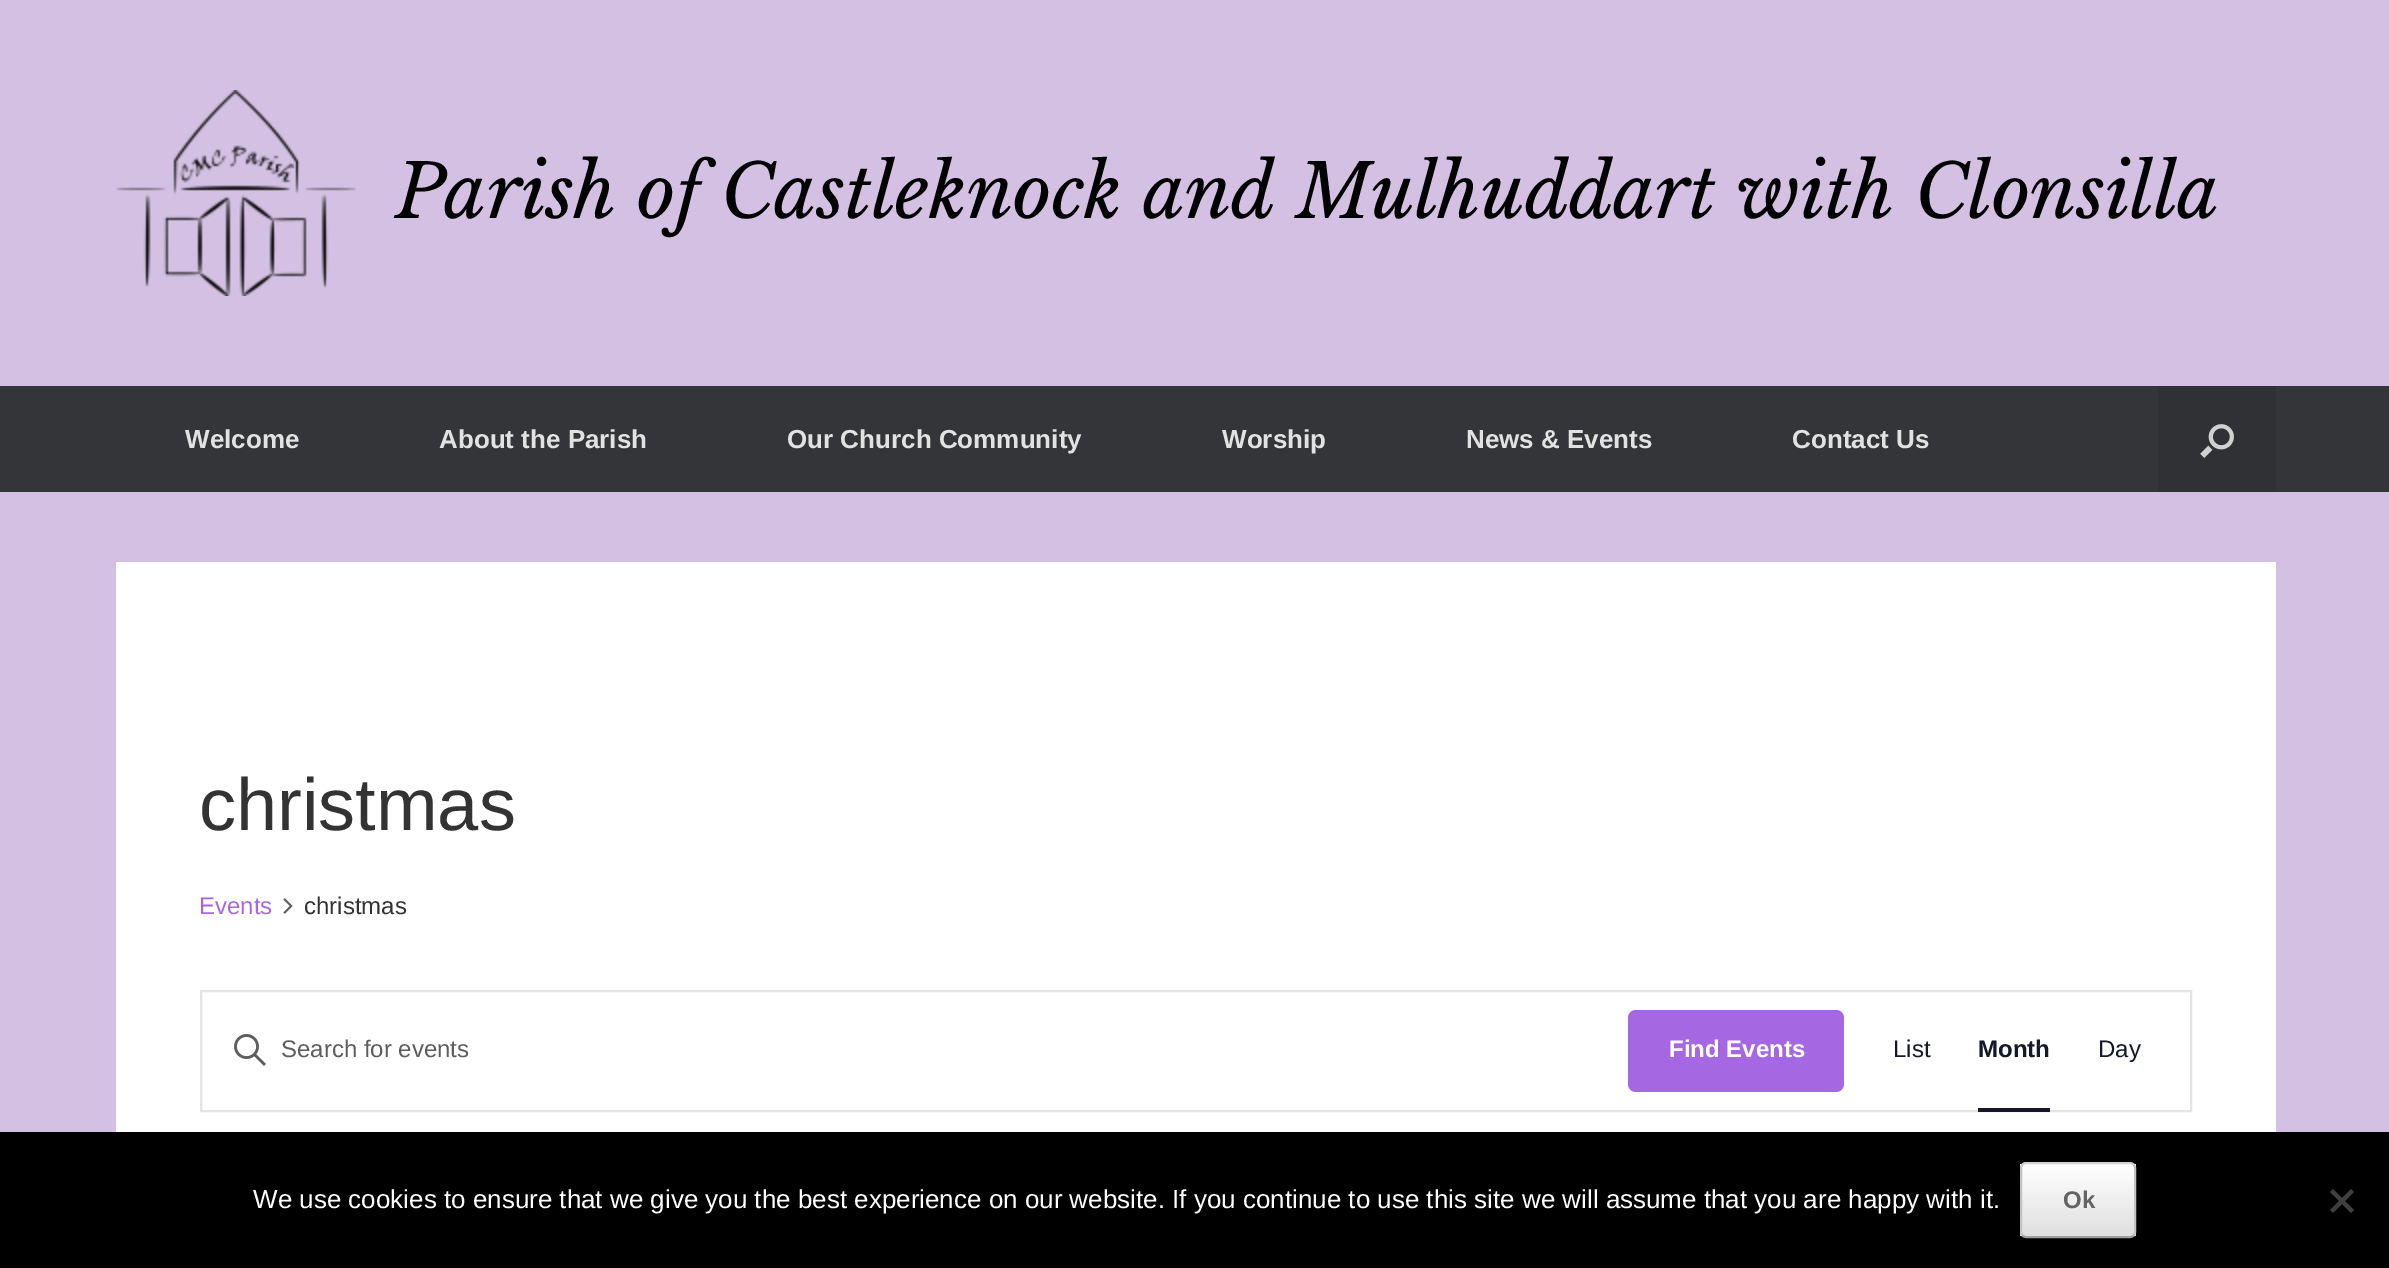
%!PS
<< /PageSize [2389 1268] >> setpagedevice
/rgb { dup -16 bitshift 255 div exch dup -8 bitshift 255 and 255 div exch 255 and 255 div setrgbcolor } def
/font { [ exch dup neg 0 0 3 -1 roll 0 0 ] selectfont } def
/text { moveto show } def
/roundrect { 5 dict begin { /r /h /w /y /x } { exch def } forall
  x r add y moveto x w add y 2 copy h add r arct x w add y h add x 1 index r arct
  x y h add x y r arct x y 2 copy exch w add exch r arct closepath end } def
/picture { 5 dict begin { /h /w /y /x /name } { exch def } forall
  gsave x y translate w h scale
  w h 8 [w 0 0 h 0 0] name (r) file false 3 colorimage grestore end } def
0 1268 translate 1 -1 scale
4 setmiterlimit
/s1 { /LibreBaskerville-Italic 74 font 16#000000 rgb } def
/s2 { /LiberationSans-Bold 26 font 16#E2E2E2 rgb } def
/s3 { /LiberationSans-Regular 74 font 16#333333 rgb } def
/s4 { /LiberationSans-Regular 24 font 16#A568E2 rgb } def
/s5 { /LiberationSans-Regular 24 font 16#333333 rgb } def
/s6 { /LiberationSans-Regular 24 font 16#5D5D5D rgb } def
/s7 { /LiberationSans-Bold 24 font 16#FFFFFF rgb } def
/s8 { /LiberationSans-Regular 24 font 16#141827 rgb } def
/s9 { /LiberationSans-Bold 24 font 16#141827 rgb } def
/s10 { /LiberationSans-Regular 26 font 16#FFFFFF rgb } def
/s11 { /LiberationSans-Bold 24 font 16#646464 rgb } def
16#D4C0E2 rgb
0 0 2389 1268 rectfill
(pic1.raw) 116 90 240 206 picture
s1
(Parish of Castleknock and Mulhuddart with Clonsilla) 395 218 text
16#343538 rgb
0 386 2389 106 rectfill
s2
(Welcome) 185 448 text
(About the Parish) 439 448 text
(Our Church Community) 787 448 text
(Worship) 1222 448 text
(News & Events) 1466 448 text
(Contact Us) 1792 448 text
16#303134 rgb
2158 386 118 106 rectfill
(pic2.raw) 2200 424 34 34 picture
16#FFFFFF rgb
116 562 2160 570 rectfill
s3
(christmas) 199 830 text
s4
(Events) 199 914 text
(pic3.raw) 283 898 10 16 picture
s5
(christmas) 304 914 text
16#E4E4E4 rgb
2 setlinewidth
201 991 1990 120 rectstroke
(pic4.raw) 234 1034 32 32 picture
s6
(Search for events) 281 1057 text
16#A568E2 rgb
1628 1010 216 82 8 roundrect fill
s7
(Find Events) 1669 1057 text
s8
(List) 1893 1057 text
s9
(Month) 1978 1057 text
1978 1108 72 4 rectfill
s8
(Day) 2098 1057 text
16#000000 rgb
0 1132 2389 136 rectfill
s10
(We use cookies to ensure that we give you the best experience on our website. If you continue to use this site we will assume that you are happy with it.) 253 1208 text
gsave
2020 1162 116 76 6 roundrect clip newpath
gsave 2020 1164 moveto 2136 1164 lineto 2136 1236 lineto 2020 1236 lineto closepath clip newpath
<< /ShadingType 2 /ColorSpace /DeviceRGB /Coords [2022 1236 2022 1164] /Extend [true true] /Function << /FunctionType 2 /Domain [0 1] /C0 [0.875 0.875 0.875] /C1 [1 1 1] /N 1 >> >> shfill grestore
grestore
16#D2D2D2 rgb
2022.5 1164.5 moveto 2023.5 1163.5 2024.5 1163 2026 1163 curveto 2130 1163 lineto 2131.5 1163 2132.5 1163.5 2133.5 1164.5 curveto stroke
16#C3C3C3 rgb
2133.5 1164.5 moveto 2134.5 1165.5 2135 1166.5 2135 1168 curveto 2135 1232 lineto 2135 1233.5 2134.5 1234.5 2133.5 1235.5 curveto stroke
16#9F9F9F rgb
2133.5 1235.5 moveto 2132.5 1236.5 2131.5 1237 2130 1237 curveto 2026 1237 lineto 2024.5 1237 2023.5 1236.5 2022.5 1235.5 curveto stroke
16#C3C3C3 rgb
2022.5 1235.5 moveto 2021.5 1234.5 2021 1233.5 2021 1232 curveto 2021 1168 lineto 2021 1166.5 2021.5 1165.5 2022.5 1164.5 curveto stroke
s11
(Ok) 2063 1208 text
16#404040 rgb
2351 1189 moveto 2354 1192 lineto 2333 1213 lineto 2330 1210 lineto closepath fill
2330 1192 moveto 2333 1189 lineto 2354 1210 lineto 2351 1213 lineto closepath fill
showpage
